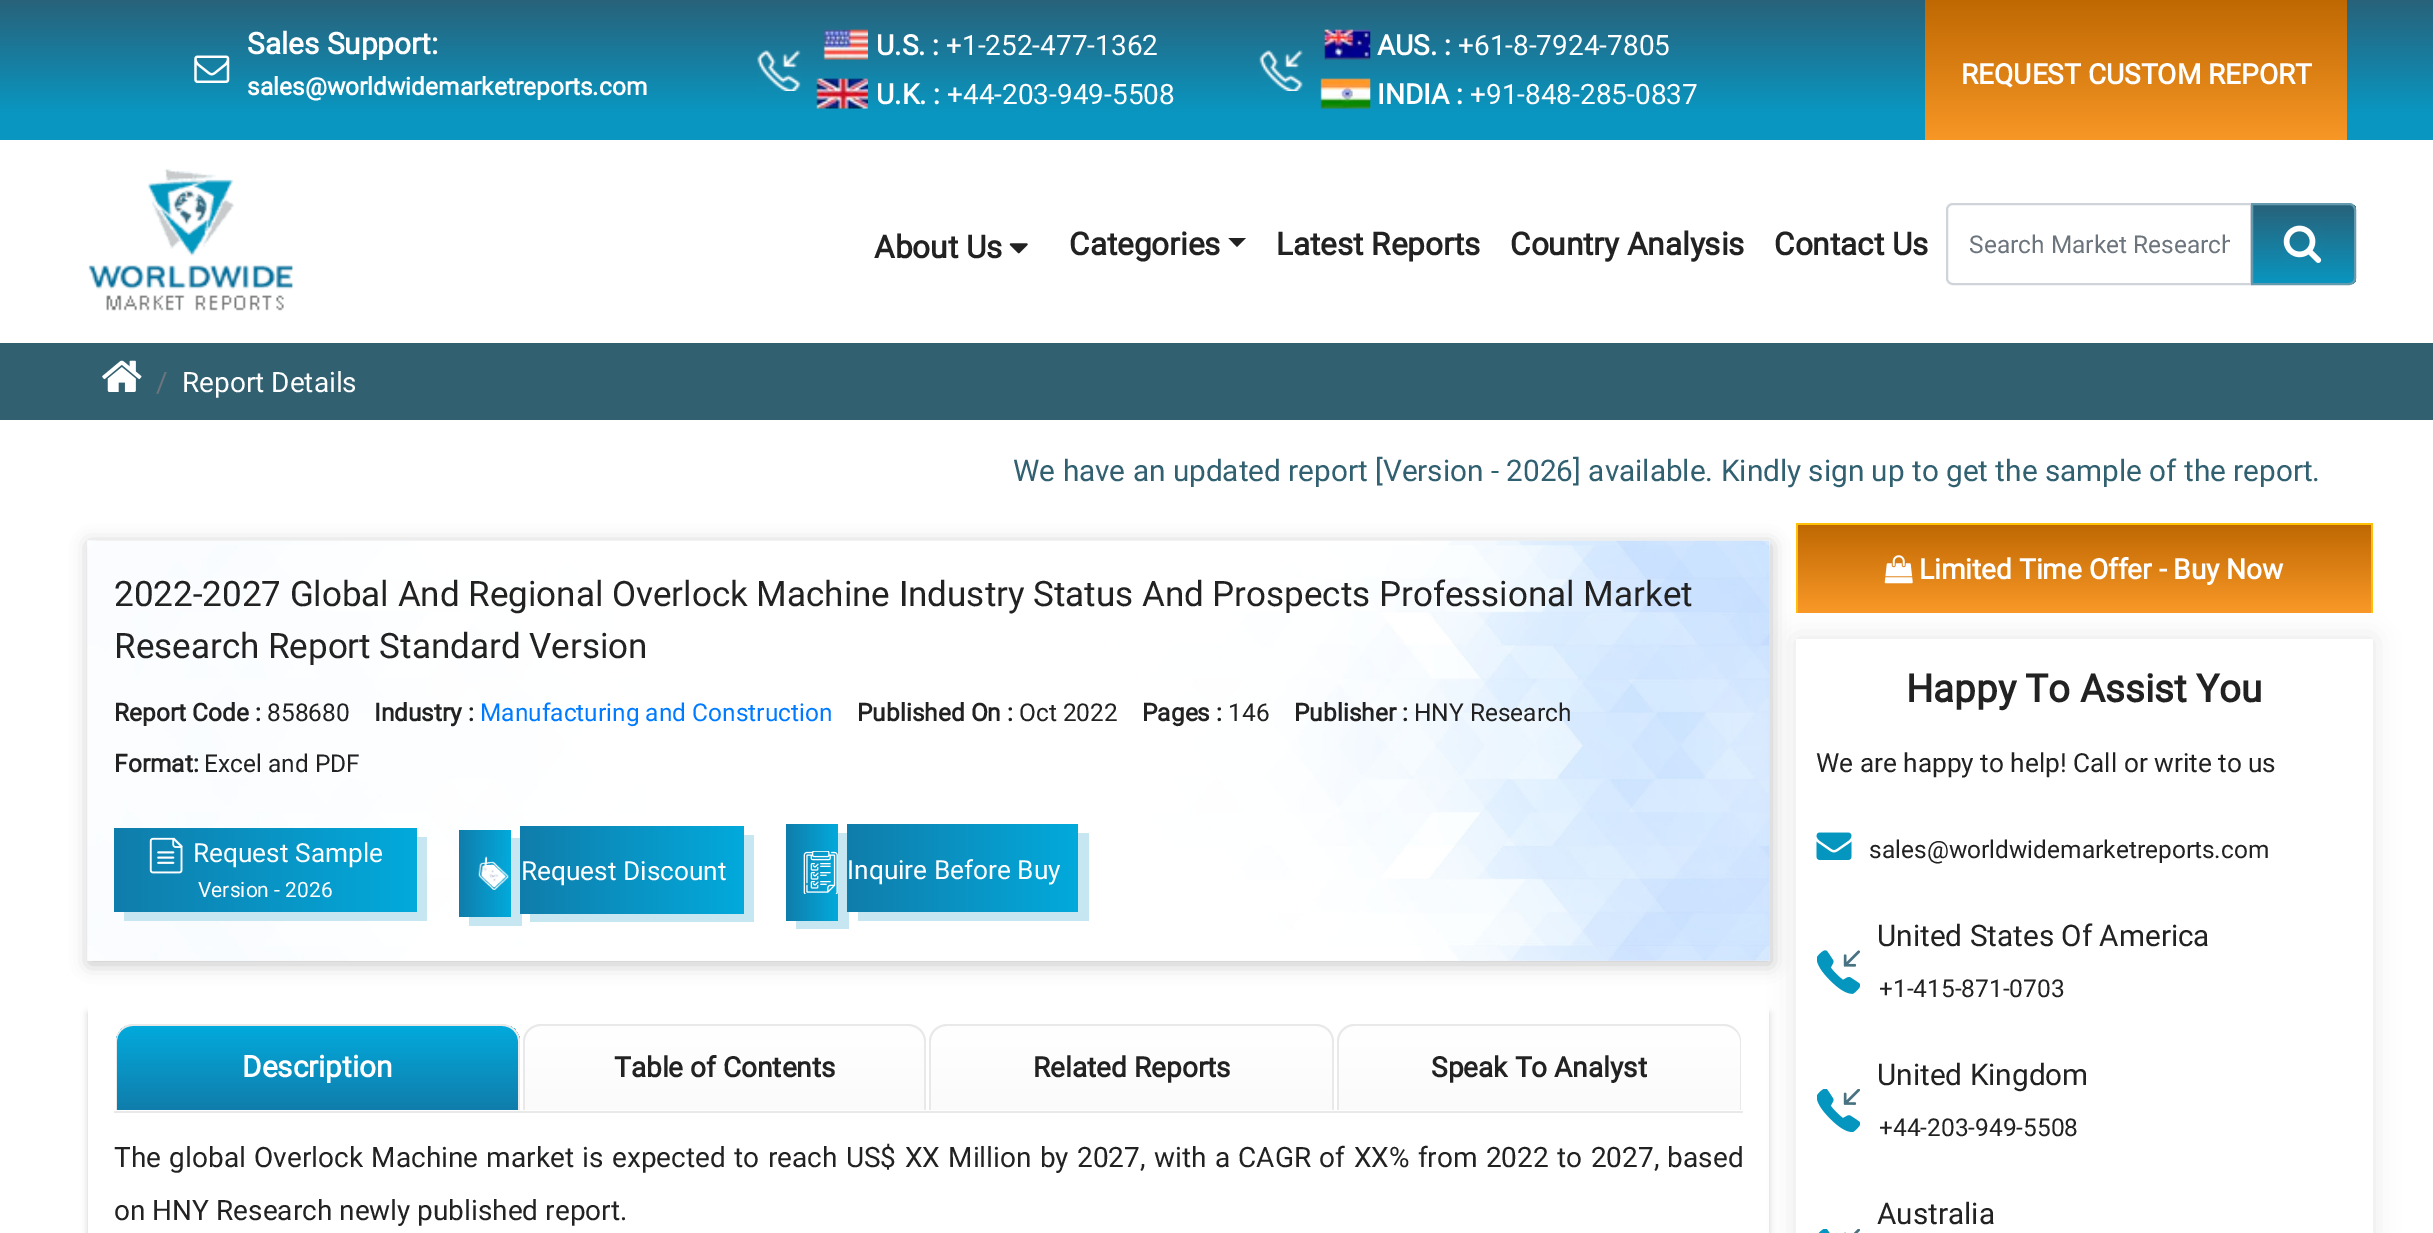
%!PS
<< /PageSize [2433 1233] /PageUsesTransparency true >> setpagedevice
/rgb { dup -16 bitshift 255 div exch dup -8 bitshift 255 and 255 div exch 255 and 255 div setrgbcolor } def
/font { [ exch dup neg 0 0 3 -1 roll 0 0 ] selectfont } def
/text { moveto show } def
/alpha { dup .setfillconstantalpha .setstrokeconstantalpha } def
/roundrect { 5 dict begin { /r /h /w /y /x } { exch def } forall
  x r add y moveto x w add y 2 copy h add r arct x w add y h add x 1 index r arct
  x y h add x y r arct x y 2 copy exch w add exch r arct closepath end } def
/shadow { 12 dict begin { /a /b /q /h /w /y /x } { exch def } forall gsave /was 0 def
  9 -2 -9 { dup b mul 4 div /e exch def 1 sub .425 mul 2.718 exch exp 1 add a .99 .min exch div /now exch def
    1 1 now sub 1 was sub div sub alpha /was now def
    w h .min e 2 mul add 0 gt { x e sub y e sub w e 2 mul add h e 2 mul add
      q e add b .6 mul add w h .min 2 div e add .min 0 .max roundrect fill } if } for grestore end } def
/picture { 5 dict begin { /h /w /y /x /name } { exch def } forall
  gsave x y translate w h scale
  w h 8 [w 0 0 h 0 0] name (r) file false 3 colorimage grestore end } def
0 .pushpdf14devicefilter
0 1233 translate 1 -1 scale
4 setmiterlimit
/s1 { /Roboto-Bold 29.75 font 16#FFFFFF rgb } def
/s2 { /Roboto-Bold 24.5 font 16#FFFFFF rgb } def
/s3 { /Roboto-Bold 28 font 16#FFFFFF rgb } def
/s4 { /Roboto-Regular 28 font 16#FFFFFF rgb } def
/s5 { /Roboto-Bold 31.5 font 16#222222 rgb } def
/s6 { /Roboto-Regular 24.5 font 16#6C757D rgb } def
/s7 { /Roboto-Regular 28 font 16#6C757D rgb } def
/s8 { /Roboto-Regular 29.75 font 16#316071 rgb } def
/s9 { /Roboto-Regular 35 font 16#222222 rgb } def
/s10 { /Roboto-Bold 24.5 font 16#222222 rgb } def
/s11 { /Roboto-Regular 24.5 font 16#222222 rgb } def
/s12 { /Roboto-Regular 24.5 font 16#007BFF rgb } def
/s13 { /Roboto-Regular 26.25 font 16#FFFFFF rgb } def
/s14 { /Roboto-Regular 21 font 16#FFFFFF rgb } def
/s15 { /Roboto-Bold 28 font 16#222222 rgb } def
/s16 { /Roboto-Regular 28 font 16#222222 rgb } def
/s17 { /Roboto-Bold 38.5 font 16#222222 rgb } def
/s18 { /Roboto-Regular 26.25 font 16#222222 rgb } def
/s19 { /Roboto-Regular 29.75 font 16#222222 rgb } def
16#FFFFFF rgb
0 0 2433 1233 rectfill
gsave 0 0 moveto 2433 0 lineto 2433 140 lineto 0 140 lineto closepath clip newpath
<< /ShadingType 2 /ColorSpace /DeviceRGB /Coords [1217 140 1217 0] /Extend [true true] /Function << /FunctionType 3 /Domain [0 1] /Functions [<< /FunctionType 2 /Domain [0 1] /C0 [0.035 0.588 0.753] /C1 [0.035 0.588 0.753] /N 1 >> << /FunctionType 2 /Domain [0 1] /C0 [0.035 0.588 0.753] /C1 [0.157 0.384 0.478] /N 1 >>] /Bounds [0.2] /Encode [0 1 0 1] >> >> shfill grestore
(pic1.raw) 194 55 36 28 picture
s1
(Sales Support:) 247 54 text
s2
(sales@worldwidemarketreports.com) 247 95 text
(pic2.raw) 823 29 45 31 picture
s3
(U.S. :) 876 55 text
s4
(+1-252-477-1362) 946 55 text
(pic3.raw) 757 50 44 41 picture
(pic4.raw) 816 78 52 31 picture
s3
(U.K. :) 876 104 text
s4
(+44-203-949-5508) 947 104 text
(pic5.raw) 1324 29 47 31 picture
s3
(AUS. :) 1377 55 text
s4
(+61-8-7924-7805) 1458 55 text
(pic6.raw) 1259 50 44 41 picture
(pic7.raw) 1320 78 51 31 picture
s3
(INDIA :) 1377 104 text
s4
(+91-848-285-0837) 1470 104 text
gsave 1925 0 moveto 2347 0 lineto 2347 140 lineto 1925 140 lineto closepath clip newpath
<< /ShadingType 2 /ColorSpace /DeviceRGB /Coords [2136 147 2136 0] /Extend [true true] /Function << /FunctionType 2 /Domain [0 1] /C0 [0.98 0.6 0.157] /C1 [0.749 0.408 0.008] /N 1 >> >> shfill grestore
s3
(REQUEST CUSTOM REPORT) 1961 84 text
(pic8.raw) 88 169 205 142 picture
s5
(About Us) 874 258 text
(pic9.raw) 1009 243 19 11 picture
(Categories) 1069 255 text
1228.5 238 moveto 1246 238 lineto 1237 247 lineto closepath fill
(Latest Reports) 1276 255 text
(Country Analysis) 1510 255 text
(Contact Us) 1774 255 text
16#CED4DA rgb
2 setlinewidth
1953 204 moveto 2251 204 lineto 2251 284 lineto 1953 284 lineto 1949.5 284 1947 281.5 1947 278 curveto 1947 210 lineto 1947 206.5 1949.5 204 1953 204 curveto closepath stroke
gsave
1969 228 261 33 rectclip
s6
(Search Market Research) 1969 253 text
grestore
gsave
2251 203 moveto 2349 203 lineto 2353 203 2356 206 2356 210 curveto 2356 278 lineto 2356 282 2353 285 2349 285 curveto 2251 285 lineto closepath clip newpath
gsave 2253 205 moveto 2356 205 lineto 2356 284 lineto 2253 284 lineto closepath clip newpath
<< /ShadingType 2 /ColorSpace /DeviceRGB /Coords [2303 284 2303 205] /Extend [true true] /Function << /FunctionType 2 /Domain [0 1] /C0 [0.035 0.588 0.753] /C1 [0.157 0.384 0.478] /N 1 >> >> shfill grestore
grestore
16#649AAD rgb
2252 204 moveto 2349 204 lineto 2352.5 204 2355 206.5 2355 210 curveto 2355 278 lineto 2355 281.5 2352.5 284 2349 284 curveto 2252 284 lineto closepath stroke
(pic10.raw) 2283 225 39 38 picture
16#316071 rgb
0 343 2433 77 rectfill
(pic11.raw) 102 360 40 32 picture
s7
(/) 156 392 text
s4
(Report Details) 182 392 text
s8
(We have an updated report [Version - 2026] available. Kindly sign up to get the sample of the report.) 1013 481 text
16#000000 rgb
89 544 1682 420 0 9 0.24 shadow
(pic12.raw) 87 540 1683 421 picture
s9
(2022-2027 Global And Regional Overlock Machine Industry Status And Prospects Professional Market) 114 606 text
(Research Report Standard Version) 114 658 text
s10
(Report Code :) 114 721 text
s11
(858680) 267 721 text
s10
(Industry :) 374 721 text
s12
(Manufacturing and Construction) 480 721 text
s10
(Published On :) 857 721 text
s11
(Oct 2022) 1019 721 text
s10
(Pages :) 1142 721 text
s11
(146) 1228 721 text
s10
(Publisher :) 1294 721 text
s11
(HNY Research) 1414 721 text
s10
(Format:) 114 772 text
s11
(Excel and PDF) 204 772 text
16#C6E7F1 rgb
124 912 moveto 124 921 lineto 427 921 lineto 427 837 lineto 416 837 lineto 416 912 lineto closepath fill
gsave 114 828 moveto 417 828 lineto 417 912 lineto 114 912 lineto closepath clip newpath
<< /ShadingType 2 /ColorSpace /DeviceRGB /Coords [417 870 114 870] /Extend [true true] /Function << /FunctionType 2 /Domain [0 1] /C0 [0.008 0.667 0.863] /C1 [0.063 0.49 0.671] /N 1 >> >> shfill grestore
(pic13.raw) 149 837 34 37 picture
s13
(Request Sample) 193 862 text
s14
(Version - 2026) 198 897 text
16#C6E7F1 rgb
469 917 moveto 469 926 lineto 522 926 lineto 522 838 lineto 511 838 lineto 511 917 lineto closepath fill
gsave 459 830 moveto 511 830 lineto 511 917 lineto 459 917 lineto closepath clip newpath
<< /ShadingType 2 /ColorSpace /DeviceRGB /Coords [511 873 459 873] /Extend [true true] /Function << /FunctionType 2 /Domain [0 1] /C0 [0.008 0.667 0.863] /C1 [0.063 0.49 0.671] /N 1 >> >> shfill grestore
530 914 moveto 530 922 lineto 754 922 lineto 754 835 lineto 744 835 lineto 744 914 lineto closepath fill
gsave 520 826 moveto 744 826 lineto 744 914 lineto 520 914 lineto closepath clip newpath
<< /ShadingType 2 /ColorSpace /DeviceRGB /Coords [744 870 520 870] /Extend [true true] /Function << /FunctionType 2 /Domain [0 1] /C0 [0.008 0.667 0.863] /C1 [0.063 0.49 0.671] /N 1 >> >> shfill grestore
(pic14.raw) 478 856 31 34 picture
s13
(Request Discount) 521 880 text
16#C6E7F1 rgb
796 920 moveto 796 929 lineto 849 929 lineto 849 833 lineto 838 833 lineto 838 920 lineto closepath fill
gsave 786 824 moveto 838 824 lineto 838 921 lineto 786 921 lineto closepath clip newpath
<< /ShadingType 2 /ColorSpace /DeviceRGB /Coords [838 872 786 872] /Extend [true true] /Function << /FunctionType 2 /Domain [0 1] /C0 [0.008 0.667 0.863] /C1 [0.063 0.49 0.671] /N 1 >> >> shfill grestore
858 912 moveto 858 921 lineto 1089 921 lineto 1089 833 lineto 1078 833 lineto 1078 912 lineto closepath fill
gsave 847 824 moveto 1078 824 lineto 1078 912 lineto 847 912 lineto closepath clip newpath
<< /ShadingType 2 /ColorSpace /DeviceRGB /Coords [1078 868 847 868] /Extend [true true] /Function << /FunctionType 2 /Domain [0 1] /C0 [0.008 0.667 0.863] /C1 [0.063 0.49 0.671] /N 1 >> >> shfill grestore
(pic15.raw) 803 851 35 43 picture
s13
(Inquire Before Buy) 847 879 text
gsave
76 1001 moveto 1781 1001 lineto 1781 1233 lineto 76 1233 lineto closepath 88 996 moveto 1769 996 lineto 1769 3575 lineto 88 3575 lineto closepath eoclip newpath
16#000000 rgb
88 1013 1681 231 0 3.5 0.18 shadow
grestore
16#E9E9E9 rgb
114 1111 1629 2 rectfill
gsave
134 1024 moveto 502 1024 lineto 512 1024 520 1032 520 1042 curveto 520 1110 lineto 116 1110 lineto 116 1042 lineto 116 1032 124 1024 134 1024 curveto closepath clip newpath
gsave 116 1026 moveto 520 1026 lineto 520 1110 lineto 116 1110 lineto closepath clip newpath
<< /ShadingType 2 /ColorSpace /DeviceRGB /Coords [318 1026 318 1110] /Extend [true true] /Function << /FunctionType 2 /Domain [0 1] /C0 [0.008 0.667 0.863] /C1 [0.063 0.49 0.671] /N 1 >> >> shfill grestore
grestore
133 1024 moveto 502 1024 lineto 512 1024 520 1032 520 1041 curveto 520 1110 lineto 116 1110 lineto 116 1041 lineto 116 1032 123 1024 133 1024 curveto closepath 133 1026 moveto 502 1026 lineto 511 1026 518 1033 518 1041 curveto 518 1110 lineto 117 1110 lineto 117 1041 lineto 117 1033 124 1026 133 1026 curveto closepath eofill
s1
(Description) 242 1077 text
gsave
541 1024 moveto 908 1024 lineto 918 1024 926 1032 926 1042 curveto 926 1110 lineto 523 1110 lineto 523 1042 lineto 523 1032 531 1024 541 1024 curveto closepath clip newpath
gsave 523 1026 moveto 926 1026 lineto 926 1110 lineto 523 1110 lineto closepath clip newpath
<< /ShadingType 2 /ColorSpace /DeviceRGB /Coords [725 1026 725 1110] /Extend [true true] /Function << /FunctionType 2 /Domain [0 1] /C0 [1 1 1] /C1 [0.984 0.984 0.984] /N 1 >> >> shfill grestore
grestore
16#E9E9E9 rgb
541 1024 moveto 908 1024 lineto 918 1024 926 1032 926 1041 curveto 926 1110 lineto 523 1110 lineto 523 1041 lineto 523 1032 531 1024 541 1024 curveto closepath 541 1026 moveto 908 1026 lineto 917 1026 924 1033 924 1041 curveto 924 1110 lineto 525 1110 lineto 525 1041 lineto 525 1033 532 1026 541 1026 curveto closepath eofill
s15
(Table of Contents) 614 1077 text
gsave
947 1024 moveto 1316 1024 lineto 1326 1024 1334 1032 1334 1042 curveto 1334 1110 lineto 929 1110 lineto 929 1042 lineto 929 1032 937 1024 947 1024 curveto closepath clip newpath
gsave 929 1026 moveto 1334 1026 lineto 1334 1110 lineto 929 1110 lineto closepath clip newpath
<< /ShadingType 2 /ColorSpace /DeviceRGB /Coords [1131 1026 1131 1110] /Extend [true true] /Function << /FunctionType 2 /Domain [0 1] /C0 [1 1 1] /C1 [0.984 0.984 0.984] /N 1 >> >> shfill grestore
grestore
16#E9E9E9 rgb
947 1024 moveto 1316 1024 lineto 1326 1024 1334 1032 1334 1041 curveto 1334 1110 lineto 929 1110 lineto 929 1041 lineto 929 1032 937 1024 947 1024 curveto closepath 947 1026 moveto 1316 1026 lineto 1325 1026 1332 1033 1332 1041 curveto 1332 1110 lineto 931 1110 lineto 931 1041 lineto 931 1033 938 1026 947 1026 curveto closepath eofill
s15
(Related Reports) 1033 1077 text
gsave
1355 1024 moveto 1723 1024 lineto 1733 1024 1741 1032 1741 1042 curveto 1741 1110 lineto 1337 1110 lineto 1337 1042 lineto 1337 1032 1345 1024 1355 1024 curveto closepath clip newpath
gsave 1337 1026 moveto 1741 1026 lineto 1741 1110 lineto 1337 1110 lineto closepath clip newpath
<< /ShadingType 2 /ColorSpace /DeviceRGB /Coords [1539 1026 1539 1110] /Extend [true true] /Function << /FunctionType 2 /Domain [0 1] /C0 [1 1 1] /C1 [0.984 0.984 0.984] /N 1 >> >> shfill grestore
grestore
16#E9E9E9 rgb
1354 1024 moveto 1724 1024 lineto 1733 1024 1741 1032 1741 1041 curveto 1741 1110 lineto 1337 1110 lineto 1337 1041 lineto 1337 1032 1345 1024 1354 1024 curveto closepath 1354 1026 moveto 1724 1026 lineto 1732 1026 1740 1033 1740 1041 curveto 1740 1110 lineto 1339 1110 lineto 1339 1041 lineto 1339 1033 1346 1026 1354 1026 curveto closepath eofill
s15
(Speak To Analyst) 1431 1077 text
/Roboto-Regular 28 font
114 1167 moveto 1.5 0 32 (The global Overlock Machine market is expected to reach US$ XX Million by 2027, with a CAGR of XX% from 2022 to 2027, based) widthshow
(on HNY Research newly published report.) 114 1220 text
gsave 1798 525 moveto 2371 525 lineto 2371 613 lineto 1798 613 lineto closepath clip newpath
<< /ShadingType 2 /ColorSpace /DeviceRGB /Coords [2084 613 2084 525] /Extend [true true] /Function << /FunctionType 2 /Domain [0 1] /C0 [0.98 0.6 0.157] /C1 [0.749 0.408 0.008] /N 1 >> >> shfill grestore
16#FFC107 rgb
1796 523 577 2 rectfill
2371 523 2 90 rectfill
1796 523 2 90 rectfill
(pic16.raw) 1884 555 29 29 picture
s3
(Limited Time Offer - Buy Now) 1919 579 text
gsave
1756 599 moveto 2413 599 lineto 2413 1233 lineto 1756 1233 lineto closepath 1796 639 moveto 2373 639 lineto 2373 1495 lineto 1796 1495 lineto closepath eoclip newpath
16#000000 rgb
1796 639 577 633 0 13 0.1 shadow
grestore
s17
(Happy To Assist You) 1906 702 text
s18
(We are happy to help! Call or write to us) 1816 772 text
(pic17.raw) 1816 832 36 28 picture
s11
(sales@worldwidemarketreports.com) 1869 858 text
s19
(United States Of America) 1877 946 text
(pic18.raw) 1817 950 43 44 picture
s11
(+1-415-871-0703) 1879 997 text
s19
(United Kingdom) 1877 1085 text
(pic19.raw) 1817 1089 43 43 picture
s11
(+44-203-949-5508) 1879 1136 text
s19
(Australia) 1877 1224 text
(pic20.raw) 1818 1229 42 4 picture
.poppdf14devicefilter showpage
